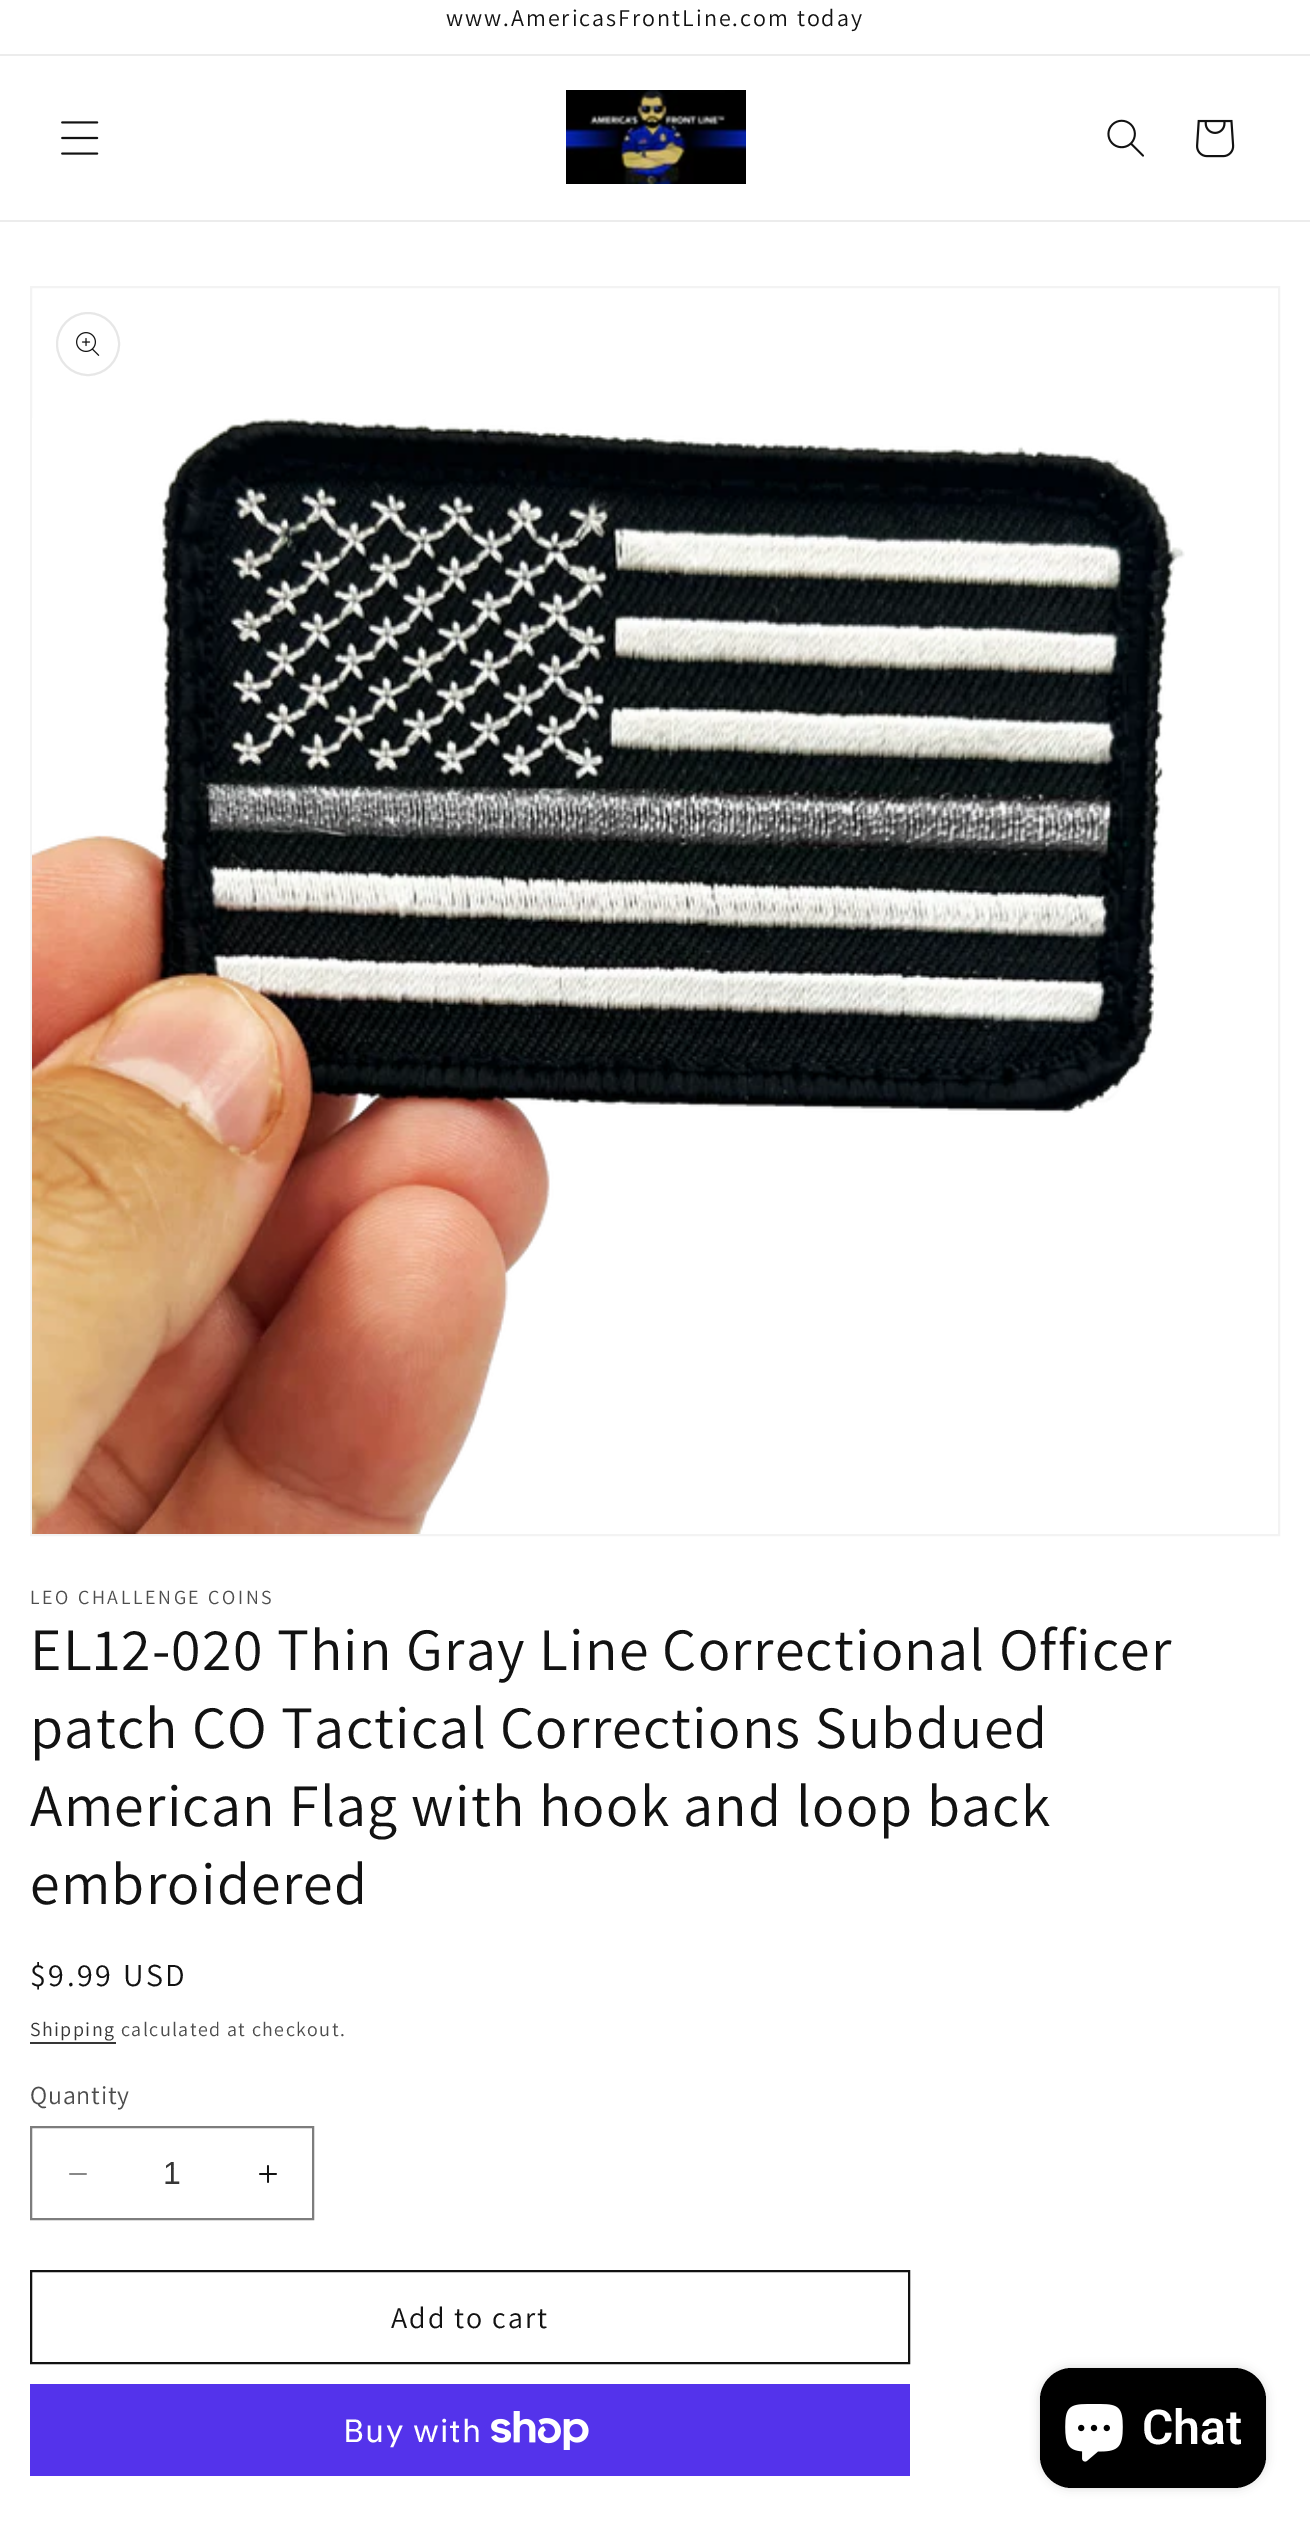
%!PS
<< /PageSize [1310 2529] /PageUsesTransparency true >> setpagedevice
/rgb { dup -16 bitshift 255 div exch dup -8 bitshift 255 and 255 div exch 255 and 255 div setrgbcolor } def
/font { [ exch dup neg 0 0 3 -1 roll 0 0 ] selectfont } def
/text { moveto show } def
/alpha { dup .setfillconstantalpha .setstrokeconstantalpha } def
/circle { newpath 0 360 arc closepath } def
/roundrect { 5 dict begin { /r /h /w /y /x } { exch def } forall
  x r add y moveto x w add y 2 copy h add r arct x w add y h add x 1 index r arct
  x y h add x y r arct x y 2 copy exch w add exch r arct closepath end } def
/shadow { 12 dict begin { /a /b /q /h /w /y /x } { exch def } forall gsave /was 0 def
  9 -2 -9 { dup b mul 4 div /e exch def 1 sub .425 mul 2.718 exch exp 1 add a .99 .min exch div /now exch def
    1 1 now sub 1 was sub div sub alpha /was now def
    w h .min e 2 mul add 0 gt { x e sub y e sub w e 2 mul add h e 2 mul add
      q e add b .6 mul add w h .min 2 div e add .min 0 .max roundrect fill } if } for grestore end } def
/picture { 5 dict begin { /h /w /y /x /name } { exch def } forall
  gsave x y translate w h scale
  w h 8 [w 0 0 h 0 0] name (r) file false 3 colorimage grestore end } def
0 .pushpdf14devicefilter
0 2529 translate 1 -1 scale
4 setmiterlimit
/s1 { /LiberationSans-Regular 32 font 16#363636 rgb } def
/s2 { /Roboto-SemiBold 48 font 16#FFFFFF rgb } def
16#FFFFFF rgb
0 0 1310 2529 rectfill
16#ECECEC rgb
0 54 1310 2 rectfill
/Assistant-Regular 24 font
16#121212 rgb
446 26 moveto 2 0 (www.AmericasFrontLine.com today) ashow
16#ECECEC rgb
0 220 1310 2 rectfill
(pic1.raw) 61 121 38 34 picture
(pic2.raw) 566 90 180 94 picture
(pic3.raw) 1107 119 37 38 picture
(pic4.raw) 1196 119 39 39 picture
16#F3F3F3 rgb
2 setlinewidth
31 287 1248 1248 rectstroke
16#E7E7E7 rgb
88 344 31 circle stroke
(pic5.raw) 76 332 24 24 picture
(pic6.raw) 32 418 1153 1116 picture
/Assistant-Regular 20 font
16#4D4D4D rgb
30 1604 moveto 2.6 0 (LEO CHALLENGE COINS) ashow
/Assistant-Regular 60 font
16#121212 rgb
30 1670 moveto 1.2 0 (EL12-020 Thin Gray Line Correctional Officer) ashow
30 1748 moveto 1.2 0 (patch CO Tactical Corrections Subdued) ashow
30 1826 moveto 1.2 0 (American Flag with hook and loop back) ashow
30 1904 moveto 1.2 0 (embroidered) ashow
/Assistant-Regular 32 font
30 1986 moveto 2.6 0 ($9.99 USD) ashow
/Assistant-Regular 20 font
16#363636 rgb
30 2036 moveto 1.4 0 (Shipping) ashow
30 2042 86 2 rectfill
16#4D4D4D rgb
121 2036 moveto 1.4 0 (calculated at checkout.) ashow
/Assistant-Regular 26 font
30 2104 moveto 0.75 0 (Quantity) ashow
(pic7.raw) 69 2173 18 2 picture
(pic8.raw) 259 2165 18 18 picture
16#7D7D7D rgb
31 2127 282 92 rectstroke
s1
(1) 163 2184 text
16#121212 rgb
31 2271 878 92 rectstroke
/Assistant-Regular 30 font
391 2328 moveto 2 0 (Add to cart) ashow
16#5433EB rgb
30 2384 880 92 rectfill
/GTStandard-Regular 32 font
16#FFFFFF rgb
343 2442 moveto 1.2 0 (Buy with) ashow
(pic9.raw) 491 2411 98 39 picture
16#000000 rgb
1040 2368 226 120 32 5 0.15 shadow
1040 2368 226 120 32 roundrect fill
(pic10.raw) 1065 2404 58 58 picture
s2
(Chat) 1142 2444 text
.poppdf14devicefilter showpage
